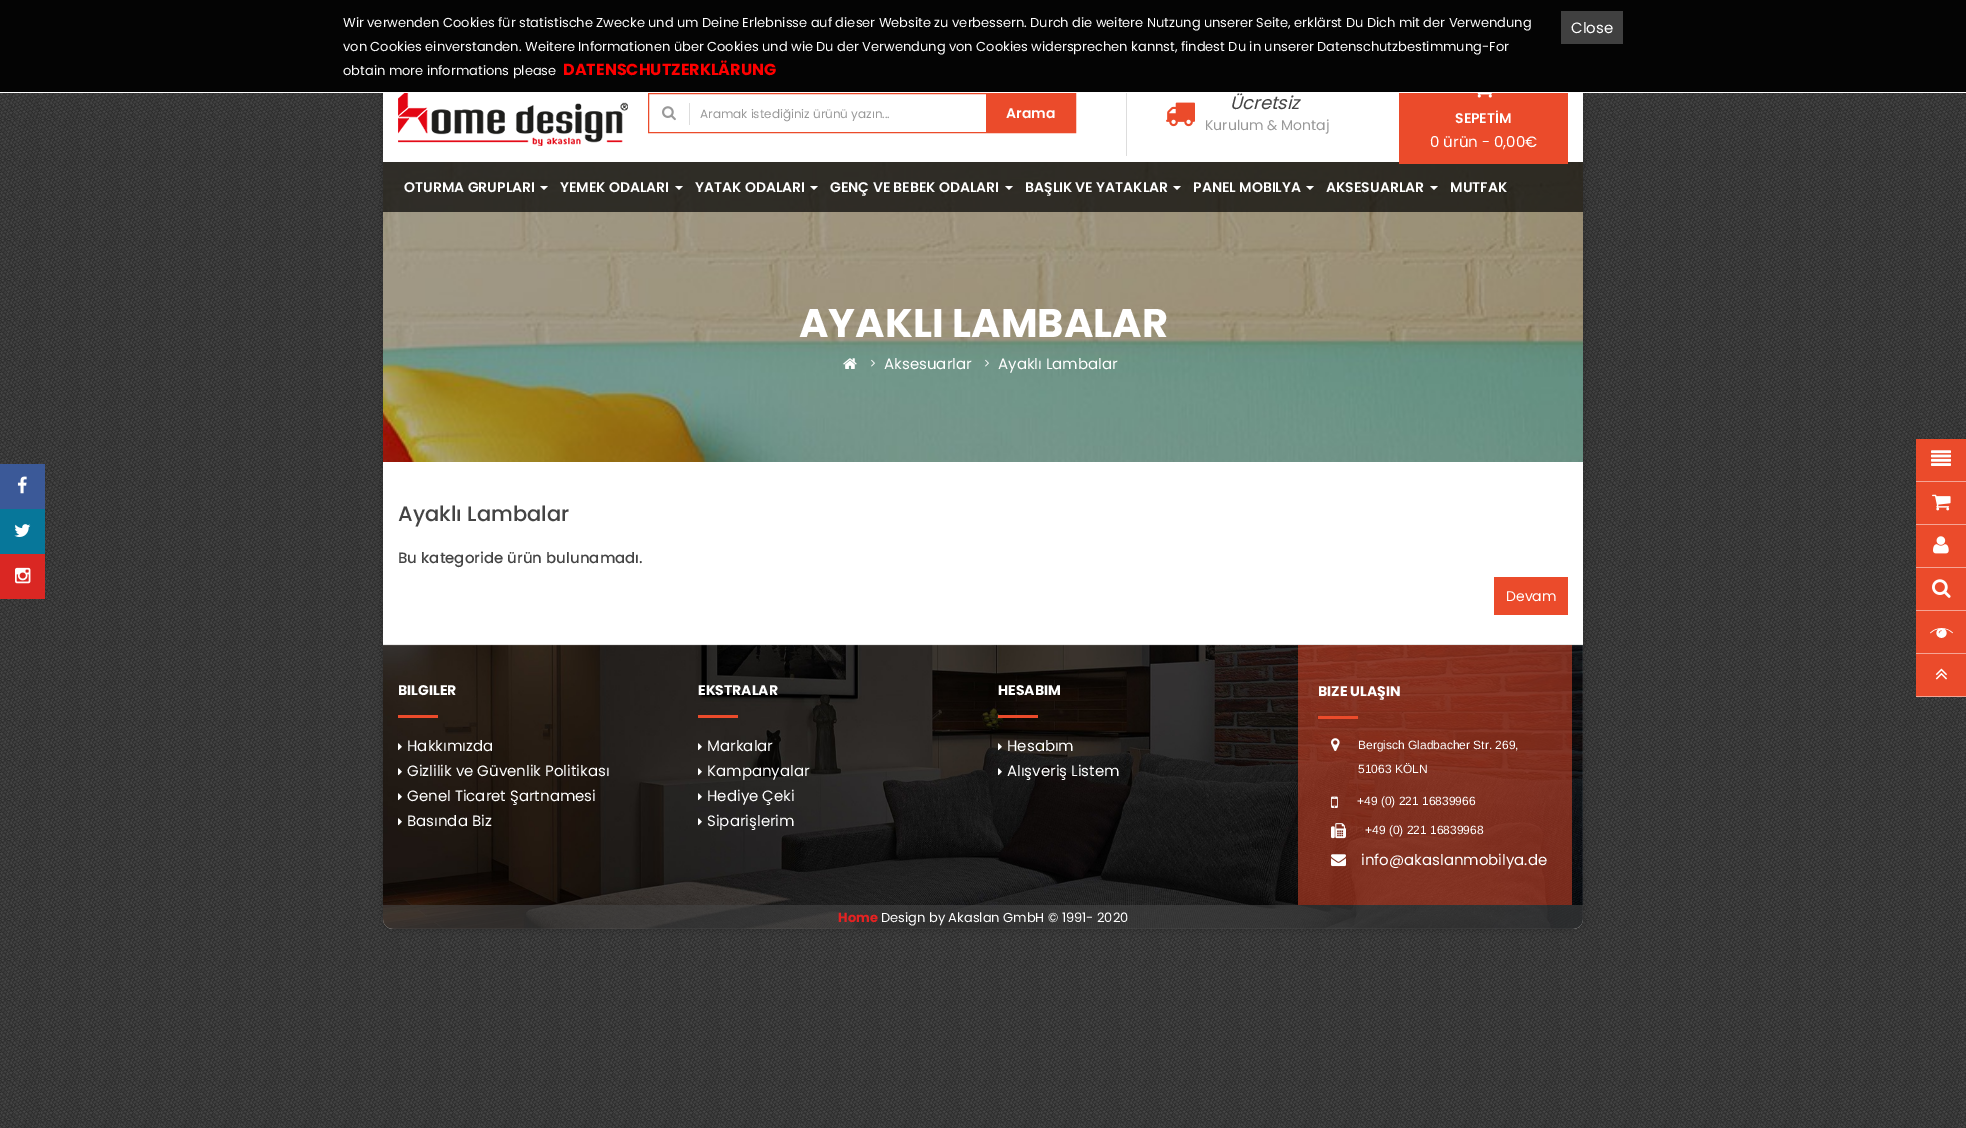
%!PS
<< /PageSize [1966 1128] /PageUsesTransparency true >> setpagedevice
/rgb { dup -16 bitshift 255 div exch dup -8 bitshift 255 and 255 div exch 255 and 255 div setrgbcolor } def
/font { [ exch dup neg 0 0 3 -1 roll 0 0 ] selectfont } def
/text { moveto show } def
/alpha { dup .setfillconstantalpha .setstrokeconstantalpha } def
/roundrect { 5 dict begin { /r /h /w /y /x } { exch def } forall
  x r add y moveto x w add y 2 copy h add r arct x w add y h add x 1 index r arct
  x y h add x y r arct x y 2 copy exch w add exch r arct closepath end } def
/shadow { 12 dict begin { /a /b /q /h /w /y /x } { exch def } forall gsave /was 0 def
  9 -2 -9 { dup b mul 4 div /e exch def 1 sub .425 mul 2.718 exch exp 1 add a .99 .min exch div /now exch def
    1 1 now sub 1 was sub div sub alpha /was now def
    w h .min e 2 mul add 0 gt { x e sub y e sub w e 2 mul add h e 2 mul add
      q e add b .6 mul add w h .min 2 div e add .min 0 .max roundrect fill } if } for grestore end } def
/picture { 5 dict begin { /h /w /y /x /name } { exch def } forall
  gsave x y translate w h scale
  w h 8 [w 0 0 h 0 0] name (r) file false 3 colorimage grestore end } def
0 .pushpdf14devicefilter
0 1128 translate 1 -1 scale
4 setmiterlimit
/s1 { /Poppins-Regular 13 font 16#FFFFFF rgb } def
/s2 { /Poppins-Regular 15 font 16#FFFFFF rgb } def
/s3 { /Poppins-Bold 16 font 16#FF0000 rgb } def
/s4 { /Poppins-Regular 12 font 16#999999 rgb } def
/s5 { /Poppins-SemiBold 14 font 16#FFFFFF rgb } def
/s6 { /Poppins-Italic 18 font 16#444444 rgb } def
/s7 { /Poppins-Regular 14 font 16#999999 rgb } def
/s8 { /Poppins-Bold 40 font 16#FFFFFF rgb } def
/s9 { /Poppins-Medium 21 font 16#444444 rgb } def
/s10 { /Poppins-Medium 15 font 16#444444 rgb } def
/s11 { /Poppins-Regular 14 font 16#FFFFFF rgb } def
/s12 { /Poppins-Bold 14 font 16#FFFFFF rgb } def
/s13 { /LiberationSans-Regular 12 font 16#FFFFFF rgb } def
/s14 { /Poppins-Bold 13 font 16#E42222 rgb } def
16#FFFFFF rgb
0 0 1966 1128 rectfill
(pic1.raw) 0 93 1966 1035 picture
16#000000 rgb
383 20 1200 909 10 5 0.2 shadow
16#FFFFFF rgb
383 20 1200 909 10 roundrect fill
16#040404 rgb
0 0 1966 92 rectfill
16#FFFFFF rgb
375 92 1216 1 rectfill
s1
(Wir verwenden Cookies für statistische Zwecke und um Deine Erlebnisse auf dieser Website zu verbessern. Durch die weitere Nutzung unserer Seite, erklärst Du Dich mit der Verwendung) 343 27 text
16#404040 rgb
1561 11 62 33 rectfill
s2
(Close) 1571 33 text
s1
(von Cookies einverstanden. Weitere Informationen über Cookies und wie Du der Verwendung von Cookies widersprechen kannst, findest Du in unserer Datenschutzbestimmung-For) 343 51 text
(obtain more informations please) 343 75 text
s3
(DATENSCHUTZERKLÄRUNG) 563 75 text
(pic2.raw) 398 93 230 53 picture
16#EB4B2B rgb
648.5 93.5 427 39 rectstroke
(pic3.raw) 662 106 14 15 picture
16#DDDDDD rgb
689 103 1 22 rectfill
s4
(Aramak istediğiniz ürünü yazın...) 700 118 text
16#EB4B2B rgb
986 94 89 38 rectfill
s5
(Arama) 1006 118 text
16#DDDDDD rgb
1126 93 1 63 rectfill
(pic4.raw) 1166 102 29 25 picture
s6
(Ücretsiz) 1230 109 text
s7
(Kurulum & Montaj) 1205 130 text
(pic6.raw) 383 162 1200 300 picture
0.7 alpha
16#000000 rgb
383 162 1200 50 rectfill
1 alpha
16#EB4B2B rgb
1399 93 169 71 rectfill
(pic5.raw) 1477 93 15 5 picture
s5
(SEPETİM) 1455 123 text
s2
(0 ürün - 0,00€) 1430 147 text
s5
(OTURMA GRUPLARI) 404 192 text
540 186 moveto 548 186 lineto 544 190 lineto closepath fill
(YEMEK ODALARI) 560 192 text
675 186 moveto 683 186 lineto 679 190 lineto closepath fill
(YATAK ODALARI) 695 192 text
810 186 moveto 818 186 lineto 814 190 lineto closepath fill
(GENÇ VE BEBEK ODALARI) 830 192 text
1005 186 moveto 1013 186 lineto 1009 190 lineto closepath fill
(BAŞLIK VE YATAKLAR) 1025 192 text
1173 186 moveto 1181 186 lineto 1177 190 lineto closepath fill
(PANEL MOBILYA) 1193 192 text
1306 186 moveto 1314 186 lineto 1310 190 lineto closepath fill
(AKSESUARLAR) 1326 192 text
1430 186 moveto 1438 186 lineto 1434 190 lineto closepath fill
(MUTFAK) 1450 192 text
s8
(AYAKLI LAMBALAR) 799 337 text
(pic7.raw) 843 358 14 11 picture
(pic8.raw) 871 359 4 8 picture
s2
(Aksesuarlar) 884 369 text
(pic9.raw) 985 359 4 8 picture
(Ayaklı Lambalar) 998 369 text
16#3B5998 rgb
0 464 45 45 rectfill
(pic10.raw) 17 476 10 18 picture
16#07779A rgb
0 509 45 45 rectfill
(pic11.raw) 14 524 17 13 picture
16#DA2723 rgb
0 554 45 45 rectfill
(pic12.raw) 15 567 16 17 picture
s9
(Ayaklı Lambalar) 398 521 text
16#EB4B2B rgb
1916 439 50 42 rectfill
16#F5A595 rgb
1916 481 50 1 rectfill
(pic13.raw) 1931 450 20 16 picture
16#EB4B2B rgb
1916 482 50 42 rectfill
16#F5A595 rgb
1916 524 50 1 rectfill
(pic14.raw) 1932 494 19 17 picture
16#EB4B2B rgb
1916 525 50 42 rectfill
16#F5A595 rgb
1916 567 50 1 rectfill
(pic15.raw) 1933 536 16 18 picture
16#EB4B2B rgb
1916 568 50 42 rectfill
16#F5A595 rgb
1916 610 50 1 rectfill
(pic16.raw) 1932 579 19 19 picture
16#EB4B2B rgb
1916 611 50 42 rectfill
16#F5A595 rgb
1916 653 50 1 rectfill
(pic17.raw) 1930 628 23 10 picture
16#EB4B2B rgb
1916 654 50 42 rectfill
16#F5A595 rgb
1916 696 50 1 rectfill
(pic18.raw) 1935 668 12 12 picture
s10
(Bu kategoride ürün bulunamadı.) 398 563 text
16#EB4B2B rgb
1494 577 74 38 rectfill
s11
(Devam) 1506 601 text
(pic19.raw) 383 644 1200 285 picture
s12
(BILGILER) 398 695 text
16#EB4B2B rgb
398 715 40 3 rectfill
(pic20.raw) 398 743 4 8 picture
s2
(Hakkımızda) 407 751 text
(pic21.raw) 398 768 4 8 picture
(Gizlilik ve Güvenlik Politikası) 407 776 text
(pic22.raw) 398 793 4 8 picture
(Genel Ticaret Şartnamesi) 407 801 text
(pic23.raw) 398 818 4 8 picture
(Basında Biz) 407 826 text
s12
(EKSTRALAR) 698 695 text
16#EB4B2B rgb
698 715 40 3 rectfill
(pic24.raw) 698 743 4 8 picture
s2
(Markalar) 707 751 text
(pic25.raw) 698 768 4 8 picture
(Kampanyalar) 707 776 text
(pic26.raw) 698 793 4 8 picture
(Hediye Çeki) 707 801 text
(pic27.raw) 698 818 4 8 picture
(Siparişlerim) 707 826 text
s12
(HESABIM) 998 695 text
16#EB4B2B rgb
998 715 40 3 rectfill
(pic28.raw) 998 743 4 8 picture
s2
(Hesabım) 1007 751 text
(pic29.raw) 998 768 4 8 picture
(Alışveriş Listem) 1007 776 text
0.5 alpha
16#EB4B2B rgb
1298 645 274 260 rectfill
1 alpha
s12
(BIZE ULAŞIN) 1318 696 text
16#EB4B2B rgb
1318 716 40 3 rectfill
(pic30.raw) 1331 738 9 13 picture
s13
(Bergisch Gladbacher Str. 269,) 1358 749 text
(51063 KÖLN) 1358 773 text
(pic31.raw) 1331 796 7 12 picture
(+49 \(0\) 221 16839966) 1357 805 text
(pic32.raw) 1331 823 15 16 picture
(+49 \(0\) 221 16839968) 1365 834 text
(pic33.raw) 1331 854 15 13 picture
s2
(info@akaslanmobilya.de) 1361 865 text
0.6 alpha
16#444444 rgb
383 905 moveto 1583 905 lineto 1583 919 lineto 1583 924.5 1578.5 929 1573 929 curveto 393 929 lineto 387.5 929 383 924.5 383 919 curveto closepath fill
1 alpha
s14
(Home) 838 922 text
s1
(Design by Akaslan GmbH © 1991- 2020) 881 922 text
.poppdf14devicefilter showpage
